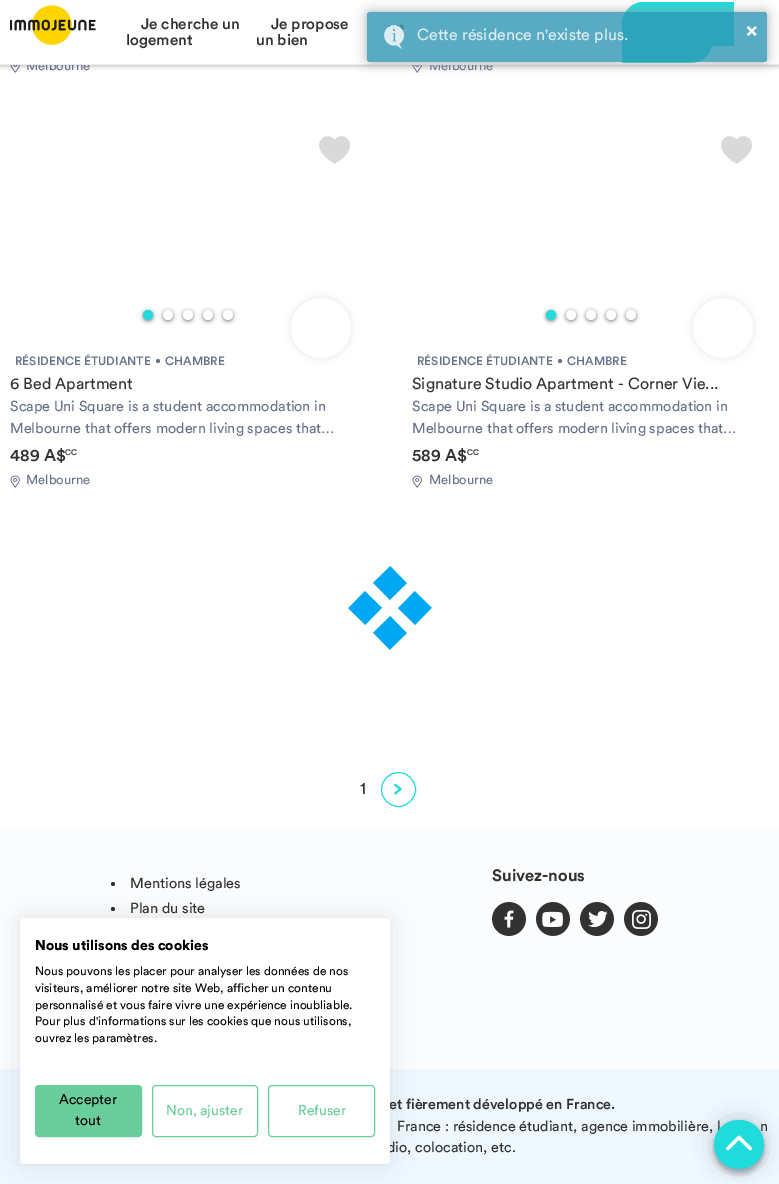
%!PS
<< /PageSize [779 1184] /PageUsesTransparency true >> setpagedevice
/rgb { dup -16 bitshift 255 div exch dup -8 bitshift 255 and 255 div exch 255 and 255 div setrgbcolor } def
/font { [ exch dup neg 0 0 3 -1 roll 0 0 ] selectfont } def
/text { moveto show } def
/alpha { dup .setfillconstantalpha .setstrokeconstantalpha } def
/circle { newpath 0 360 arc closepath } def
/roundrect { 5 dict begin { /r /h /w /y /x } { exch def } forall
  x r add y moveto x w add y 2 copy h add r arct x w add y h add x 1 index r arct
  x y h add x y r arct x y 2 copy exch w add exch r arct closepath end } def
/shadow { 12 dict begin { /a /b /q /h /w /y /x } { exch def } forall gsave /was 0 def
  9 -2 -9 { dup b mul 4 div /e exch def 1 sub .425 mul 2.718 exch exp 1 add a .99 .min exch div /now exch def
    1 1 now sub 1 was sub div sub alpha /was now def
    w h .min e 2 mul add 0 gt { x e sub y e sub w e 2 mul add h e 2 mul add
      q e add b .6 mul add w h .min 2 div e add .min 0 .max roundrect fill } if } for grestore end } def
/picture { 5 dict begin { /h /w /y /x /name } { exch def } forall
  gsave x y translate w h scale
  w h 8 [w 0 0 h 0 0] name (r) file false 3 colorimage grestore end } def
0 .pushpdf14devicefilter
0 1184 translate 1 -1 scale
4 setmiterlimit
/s1 { /Circular-Regular 13 font 16#69728B rgb } def
/s2 { /Circular-Medium 15.25 font 16#323232 rgb } def
/s3 { /Circular-Regular 16 font 16#DDEEF2 rgb } def
/s4 { /Circular-Black 20 font 16#FFFFFF rgb } def
/s5 { /Circular-Medium 12 font 16#69728B rgb } def
/s6 { /Circular-Regular 16 font 16#323232 rgb } def
/s7 { /Circular-Regular 14.4 font 16#69728B rgb } def
/s8 { /Circular-Medium 17 font 16#323232 rgb } def
/s9 { /Circular-Medium 8 font 16#323232 rgb } def
/s10 { /Circular-Regular 17 font 16#323232 rgb } def
/s11 { /Circular-Bold 16.5 font 16#323232 rgb } def
/s12 { /Circular-Regular 14.5 font 16#323232 rgb } def
/s13 { /Circular-Medium 14.4 font 16#323232 rgb } def
/s14 { /Circular-Regular 14.4 font 16#323232 rgb } def
/s15 { /Circular-Black 14 font 16#000000 rgb } def
/s16 { /Circular-Regular 12 font 16#000000 rgb } def
/s17 { /Circular-Regular 14 font 16#000000 rgb } def
/s18 { /Circular-Regular 14 font 16#69CD9C rgb } def
16#FFFFFF rgb
0 0 779 1184 rectfill
(pic3.raw) 10 65 10 8 picture
(pic3.raw) 412 65 10 8 picture
16#000000 rgb
0 1 779 65 0 2.5 0.25 shadow
s1
(Melbourne) 26 70 text
(Melbourne) 429 70 text
16#FFFFFF rgb
0 0 779 64 rectfill
16#EAECEF rgb
0 64 779 1 rectfill
(pic1.raw) 10 5 86 40 picture
s2
(Je cherche un) 141 29 text
(logement) 126 45 text
(Je propose) 271 29 text
(un bien) 256 45 text
16#1FDBDC rgb
644 2 moveto 734 2 lineto 734 46 lineto 644 46 lineto 632 46 622 36 622 24 curveto 622 12 632 2 644 2 curveto closepath fill
644 2 moveto 734 2 lineto 734 46 lineto 644 46 lineto 632 46 622 36 622 24 curveto 622 12 632 2 644 2 curveto closepath 644 4 moveto 734 4 lineto 734 44 lineto 644 44 lineto 633 44 624 35 624 24 curveto 624 13 633 4 644 4 curveto closepath eofill
622 19 moveto 690 19 lineto 702 19 712 29 712 41 curveto 712 53 702 63 690 63 curveto 622 63 lineto closepath fill
622 19 moveto 690 19 lineto 702 19 712 29 712 41 curveto 712 53 702 63 690 63 curveto 622 63 lineto closepath 622 21 moveto 690 21 lineto 701 21 710 30 710 41 curveto 710 52 701 61 690 61 curveto 622 61 lineto closepath eofill
gsave
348 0 moveto 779 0 lineto 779 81 lineto 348 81 lineto closepath 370 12 moveto 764 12 lineto 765.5 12 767 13.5 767 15 curveto 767 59 lineto 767 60.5 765.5 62 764 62 curveto 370 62 lineto 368.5 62 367 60.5 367 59 curveto 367 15 lineto 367 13.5 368.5 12 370 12 curveto closepath eoclip newpath
16#999999 rgb
367 12 400 50 3 6 0.8 shadow
grestore
0.8 alpha
16#2F96B4 rgb
367 12 400 50 3 roundrect fill
1 alpha
(pic2.raw) 384 25 20 24 picture
s3
(Cette résidence n'existe plus.) 417 40 text
s4
(×) 746 37 text
(pic4.raw) 319 136 31 28 picture
16#000000 rgb
143 311 10 10 5 2 0.5 shadow
16#1FDBDC rgb
148 315 5 circle fill
16#000000 rgb
163 311 10 10 5 2 0.5 shadow
16#FFFFFF rgb
168 315 5 circle fill
16#000000 rgb
183 311 10 10 5 2 0.5 shadow
16#FFFFFF rgb
188 315 5 circle fill
16#000000 rgb
203 311 10 10 5 2 0.5 shadow
16#FFFFFF rgb
208 315 5 circle fill
16#000000 rgb
223 311 10 10 5 2 0.5 shadow
16#FFFFFF rgb
228 315 5 circle fill
16#C7C7C7 rgb
291 298 60 60 30 4 0.5 shadow
16#FFFFFF rgb
321 328 28 circle gsave fill grestore
4 setlinewidth
stroke
s5
(RÉSIDENCE ÉTUDIANTE) 15 365 text
158 361 2 circle fill
(CHAMBRE) 165 365 text
s6
(6 Bed Apartment) 10 389 text
s7
(Scape Uni Square is a student accommodation in) 10 411 text
(Melbourne that offers modern living spaces that…) 10 433 text
s8
(489 A$) 10 461 text
s9
(CC) 65 455 text
(pic5.raw) 10 475 10 13 picture
s1
(Melbourne) 26 484 text
(pic4.raw) 721 136 31 28 picture
16#000000 rgb
546 311 10 10 5 2 0.5 shadow
16#1FDBDC rgb
551 315 5 circle fill
16#000000 rgb
566 311 10 10 5 2 0.5 shadow
16#FFFFFF rgb
571 315 5 circle fill
16#000000 rgb
586 311 10 10 5 2 0.5 shadow
16#FFFFFF rgb
591 315 5 circle fill
16#000000 rgb
606 311 10 10 5 2 0.5 shadow
16#FFFFFF rgb
611 315 5 circle fill
16#000000 rgb
626 311 10 10 5 2 0.5 shadow
16#FFFFFF rgb
631 315 5 circle fill
16#C7C7C7 rgb
693 298 60 60 30 4 0.5 shadow
16#FFFFFF rgb
723 328 28 circle gsave fill grestore
stroke
s5
(RÉSIDENCE ÉTUDIANTE) 417 365 text
560 361 2 circle fill
(CHAMBRE) 567 365 text
s6
(Signature Studio Apartment - Corner Vie...) 412 389 text
s7
(Scape Uni Square is a student accommodation in) 412 411 text
(Melbourne that offers modern living spaces that…) 412 433 text
s8
(589 A$) 412 461 text
s9
(CC) 467 455 text
(pic5.raw) 412 475 10 13 picture
s1
(Melbourne) 429 484 text
(pic6.raw) 348 566 84 84 picture
s10
(1) 360 794 text
16#1FDBDC rgb
1 setlinewidth
398.5 789.5 17 circle stroke
(pic7.raw) 394 783 8 12 picture
16#FAFCFE rgb
0 827 779 242 rectfill
s11
(Suivez-nous) 492 881 text
(pic8.raw) 492 902 34 34 picture
(pic9.raw) 536 902 34 34 picture
(pic10.raw) 580 902 34 34 picture
(pic11.raw) 624 902 34 34 picture
113 884 2 circle fill
s12
(Mentions légales) 130 888 text
113 909 2 circle fill
(Plan du site) 130 913 text
16#EFF7FF rgb
0 1069 779 115 rectfill
s13
(et fièrement développé en France.) 389 1109 text
s14
(France : résidence étudiant, agence immobilière, l) 397 1131 text
(n) 760 1131 text
(dio, colocation, etc.) 387 1152 text
16#000000 rgb
20 918 370 246 4 12 0.1 shadow
16#FFFFFF rgb
20 918 370 246 4 roundrect fill
s15
(Nous utilisons des cookies) 35 950 text
s16
(Nous pouvons les placer pour analyser les données de nos) 35 975 text
(visiteurs, améliorer notre site Web, afficher un contenu) 35 992 text
(personnalisé et vous faire vivre une expérience inoubliable.) 35 1009 text
(Pour plus d'informations sur les cookies que nous utilisons,) 35 1025 text
(ouvrez les paramètres.) 35 1042 text
16#69CD9C rgb
35.5 1085.5 106 51 3.5 roundrect gsave fill grestore
stroke
s17
(Accepter) 59 1104 text
(tout) 75 1125 text
16#69CD9C rgb
152.5 1085.5 105 51 3.5 roundrect stroke
(Non, ajuster) 166 1115 text
268.5 1085.5 106 51 3.5 roundrect stroke
(Refuser) 298 1115 text
16#000000 rgb
714 1125 50 49 24.5 2.5 0.24 shadow
714 1120 50 49 24.5 10 0.2 shadow
16#1FDBDC rgb
714 1120 50 49 24.5 roundrect fill
(pic12.raw) 726 1135 26 16 picture
.poppdf14devicefilter showpage
